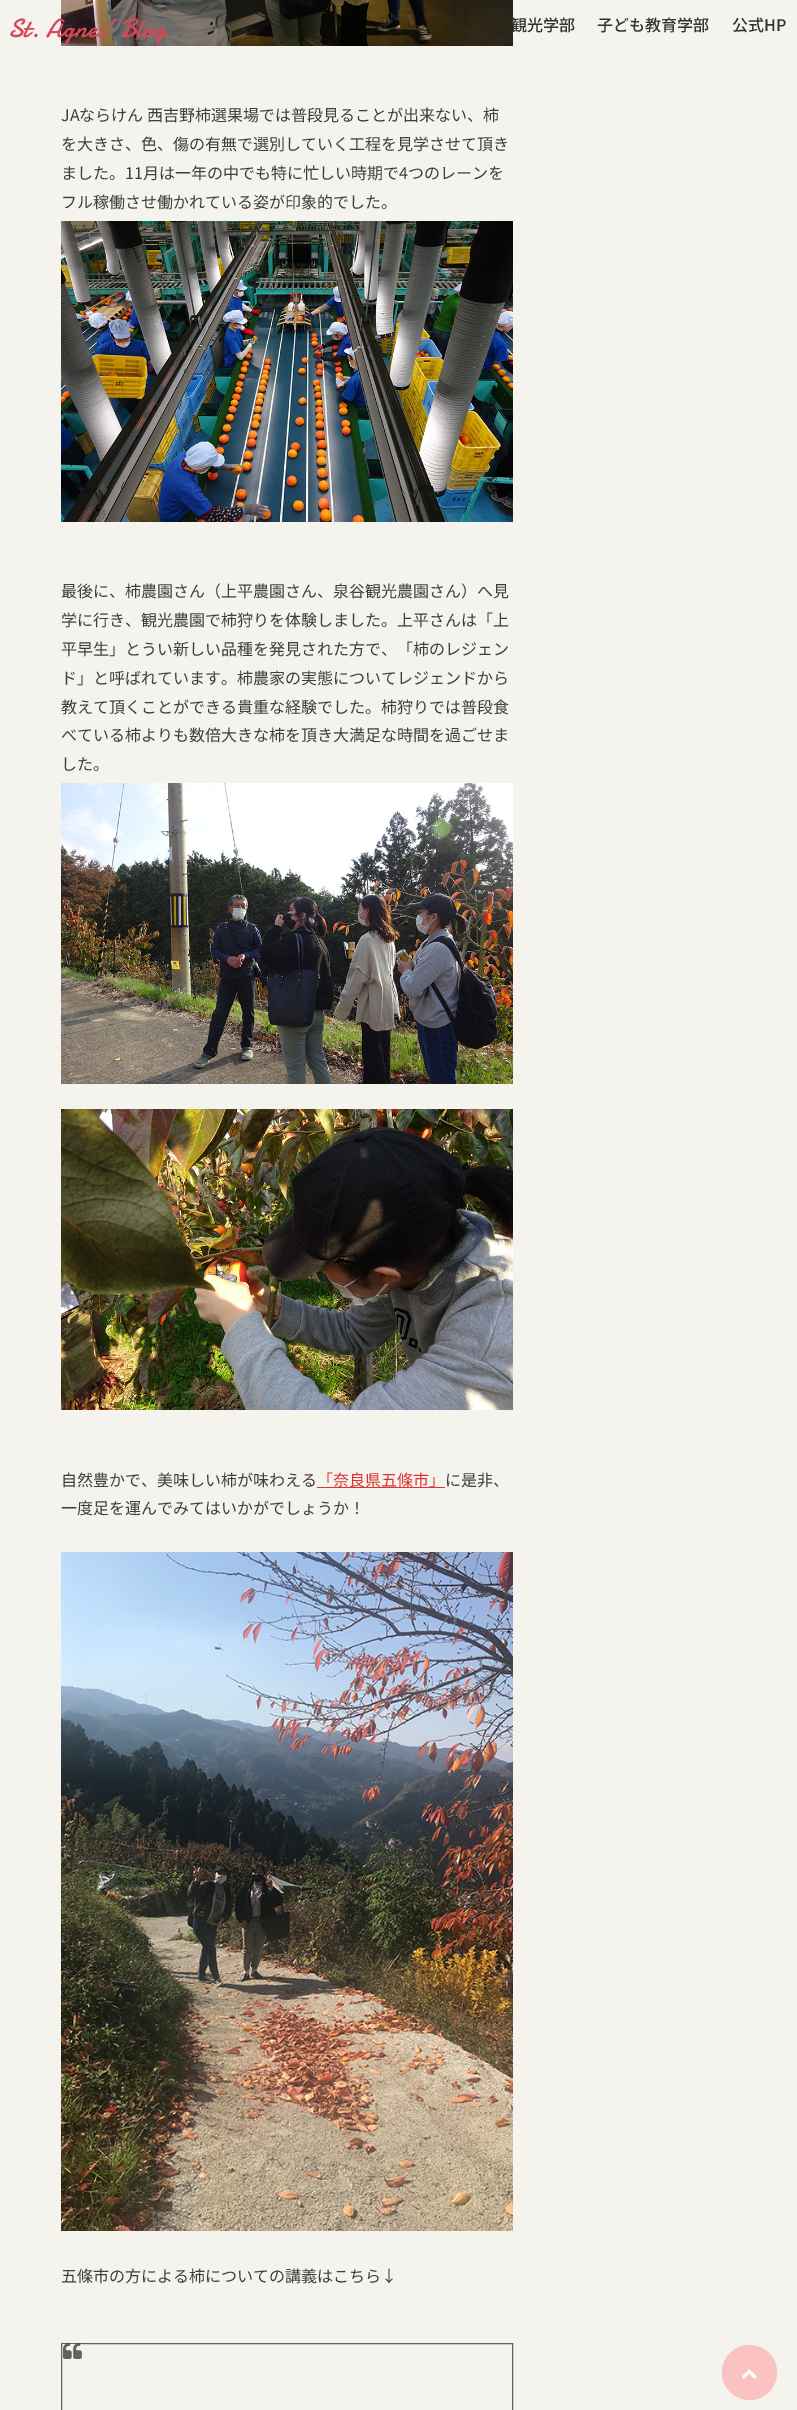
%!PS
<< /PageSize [797 2410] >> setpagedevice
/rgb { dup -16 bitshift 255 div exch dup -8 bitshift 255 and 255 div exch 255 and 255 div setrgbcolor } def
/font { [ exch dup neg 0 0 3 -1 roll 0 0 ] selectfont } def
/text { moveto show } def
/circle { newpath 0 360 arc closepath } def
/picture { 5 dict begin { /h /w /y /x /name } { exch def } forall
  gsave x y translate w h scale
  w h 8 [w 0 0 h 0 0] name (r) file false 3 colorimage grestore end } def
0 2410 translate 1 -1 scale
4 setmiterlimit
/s1 { /Damion-Regular 26.5 font 16#D94657 rgb } def
/s2 { /NotoSansJP-Medium 16 font 16#333333 rgb } def
/s3 { /NotoSansJP-Regular 16 font 16#3E3E3E rgb } def
/s4 { /NotoSansJP-Regular 16 font 16#DD3333 rgb } def
16#F5F3EE rgb
0 0 797 2410 rectfill
(pic1.raw) 61 0 452 46 picture
s1
(St. Agnes' Blog) 8 37 text
s2
(観光学部) 511 31 text
(子ども教育学部) 597 31 text
(公式HP) 732 31 text
s3
(JAならけん 西吉野柿選果場では普段見ることが出来ない、柿) 61 121 text
(を大きさ、色、傷の有無で選別していく工程を見学させて頂き) 61 150 text
(ました。11月は一年の中でも特に忙しい時期で4つのレーンを) 61 179 text
(フル稼働させ働かれている姿が印象的でした。) 61 208 text
(pic2.raw) 61 221 452 301 picture
(最後に、柿農園さん（上平農園さん、泉谷観光農園さん）へ見) 61 597 text
(学に行き、観光農園で柿狩りを体験しました。上平さんは「上) 61 626 text
(平早生」とうい新しい品種を発見された方で、「柿のレジェン) 61 655 text
(ド」と呼ばれています。柿農家の実態についてレジェンドから) 61 684 text
(教えて頂くことができる貴重な経験でした。柿狩りでは普段食) 61 713 text
(べている柿よりも数倍大きな柿を頂き大満足な時間を過ごせま) 61 741 text
(した。) 61 770 text
(pic3.raw) 61 783 452 301 picture
(pic4.raw) 61 1109 452 301 picture
(自然豊かで、美味しい柿が味わえる) 61 1486 text
16#DD3333 rgb
317 1487 128 1 rectfill
(「奈良県五條市」) 317 1486 text
s3
(に是非、) 445 1486 text
(一度足を運んでみてはいかがでしょうか！) 61 1514 text
(pic5.raw) 61 1552 452 679 picture
(五條市の方による柿についての講義はこちら↓) 61 2282 text
16#636261 rgb
61.5 2343.5 451 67 rectstroke
(pic6.raw) 63 2343 19 16 picture
16#FAC2C0 rgb
749.5 2372.5 27.5 circle fill
(pic7.raw) 741 2369 16 10 picture
showpage
